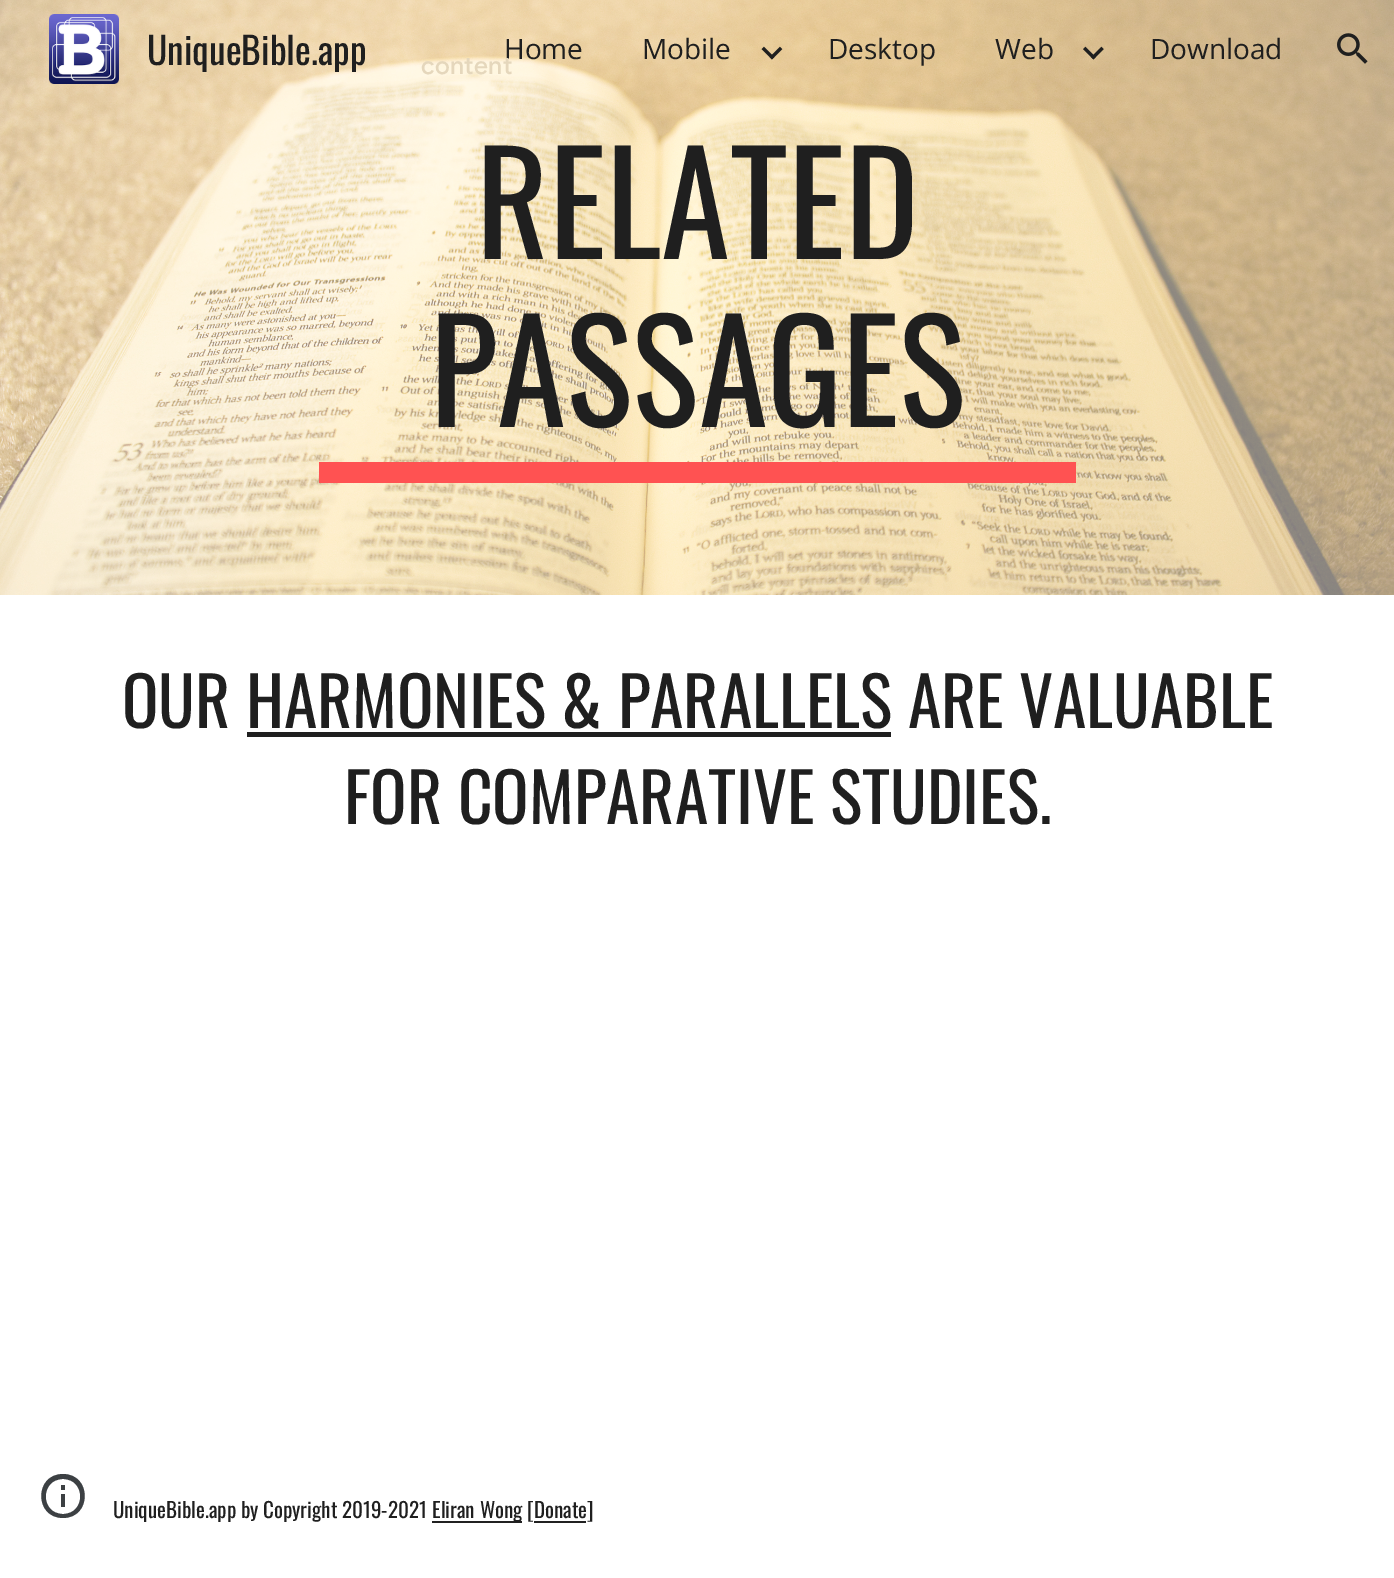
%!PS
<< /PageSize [1394 1578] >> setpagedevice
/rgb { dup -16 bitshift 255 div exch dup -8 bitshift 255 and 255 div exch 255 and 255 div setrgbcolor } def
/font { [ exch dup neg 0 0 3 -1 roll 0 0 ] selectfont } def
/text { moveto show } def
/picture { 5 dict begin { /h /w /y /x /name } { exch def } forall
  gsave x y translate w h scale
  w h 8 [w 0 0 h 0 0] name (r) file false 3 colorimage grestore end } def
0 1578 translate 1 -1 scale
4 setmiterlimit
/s1 { /Oswald-Regular 37.5 font 16#1F1F1F rgb } def
/s2 { /OpenSans-Regular 28 font 16#1F1F1F rgb } def
/s3 { /Oswald-Regular 140 font 16#1F1F1F rgb } def
/s4 { /Oswald-Regular 67.7 font 16#1F1F1F rgb } def
/s5 { /Oswald-Regular 21 font 16#1F1F1F rgb } def
16#FFFFFF rgb
0 0 1394 1578 rectfill
(pic5.raw) 0 0 1394 595 picture
(pic1.raw) 49 14 70 70 picture
s1
(UniqueBible.app) 147 65 text
s2
(Home) 504 59 text
(Mobile) 642 59 text
(pic2.raw) 761 46 22 14 picture
(Desktop) 828 59 text
(Web) 995 59 text
(pic3.raw) 1083 46 21 14 picture
(Download) 1150 59 text
(pic4.raw) 1337 33 31 31 picture
s3
(RELATED) 476 259 text
(PASSAGES) 430 427 text
16#FF5252 rgb
319 462 757 21 rectfill
s4
(OUR HARMONIES & PARALLELS ARE VALUABLE) 122 728 text
247 732 644 5 rectfill
(FOR COMPARATIVE STUDIES.) 344 824 text
16#3C4043 rgb
61 1507 moveto 65 1507 lineto 65 1494 lineto 61 1494 lineto closepath 63 1474 moveto 34 1474 34 1518 63 1518 curveto 92 1518 92 1474 63 1474 curveto closepath 63 1514 moveto 40 1514 40 1479 63 1479 curveto 86 1479 86 1514 63 1514 curveto closepath 61 1490 moveto 65 1490 lineto 65 1485 lineto 61 1485 lineto closepath fill
s5
(UniqueBible.app by Copyright 2019-2021) 113 1518 text
16#212121 rgb
432 1521 90 2 rectfill
s5
(Eliran Wong [Donate]) 432 1518 text
16#212121 rgb
534 1521 52 2 rectfill
/GoogleSans-Medium 24.5 font
16#E5D7BC rgb
421 74 moveto 0.25 0 (content) ashow
showpage
